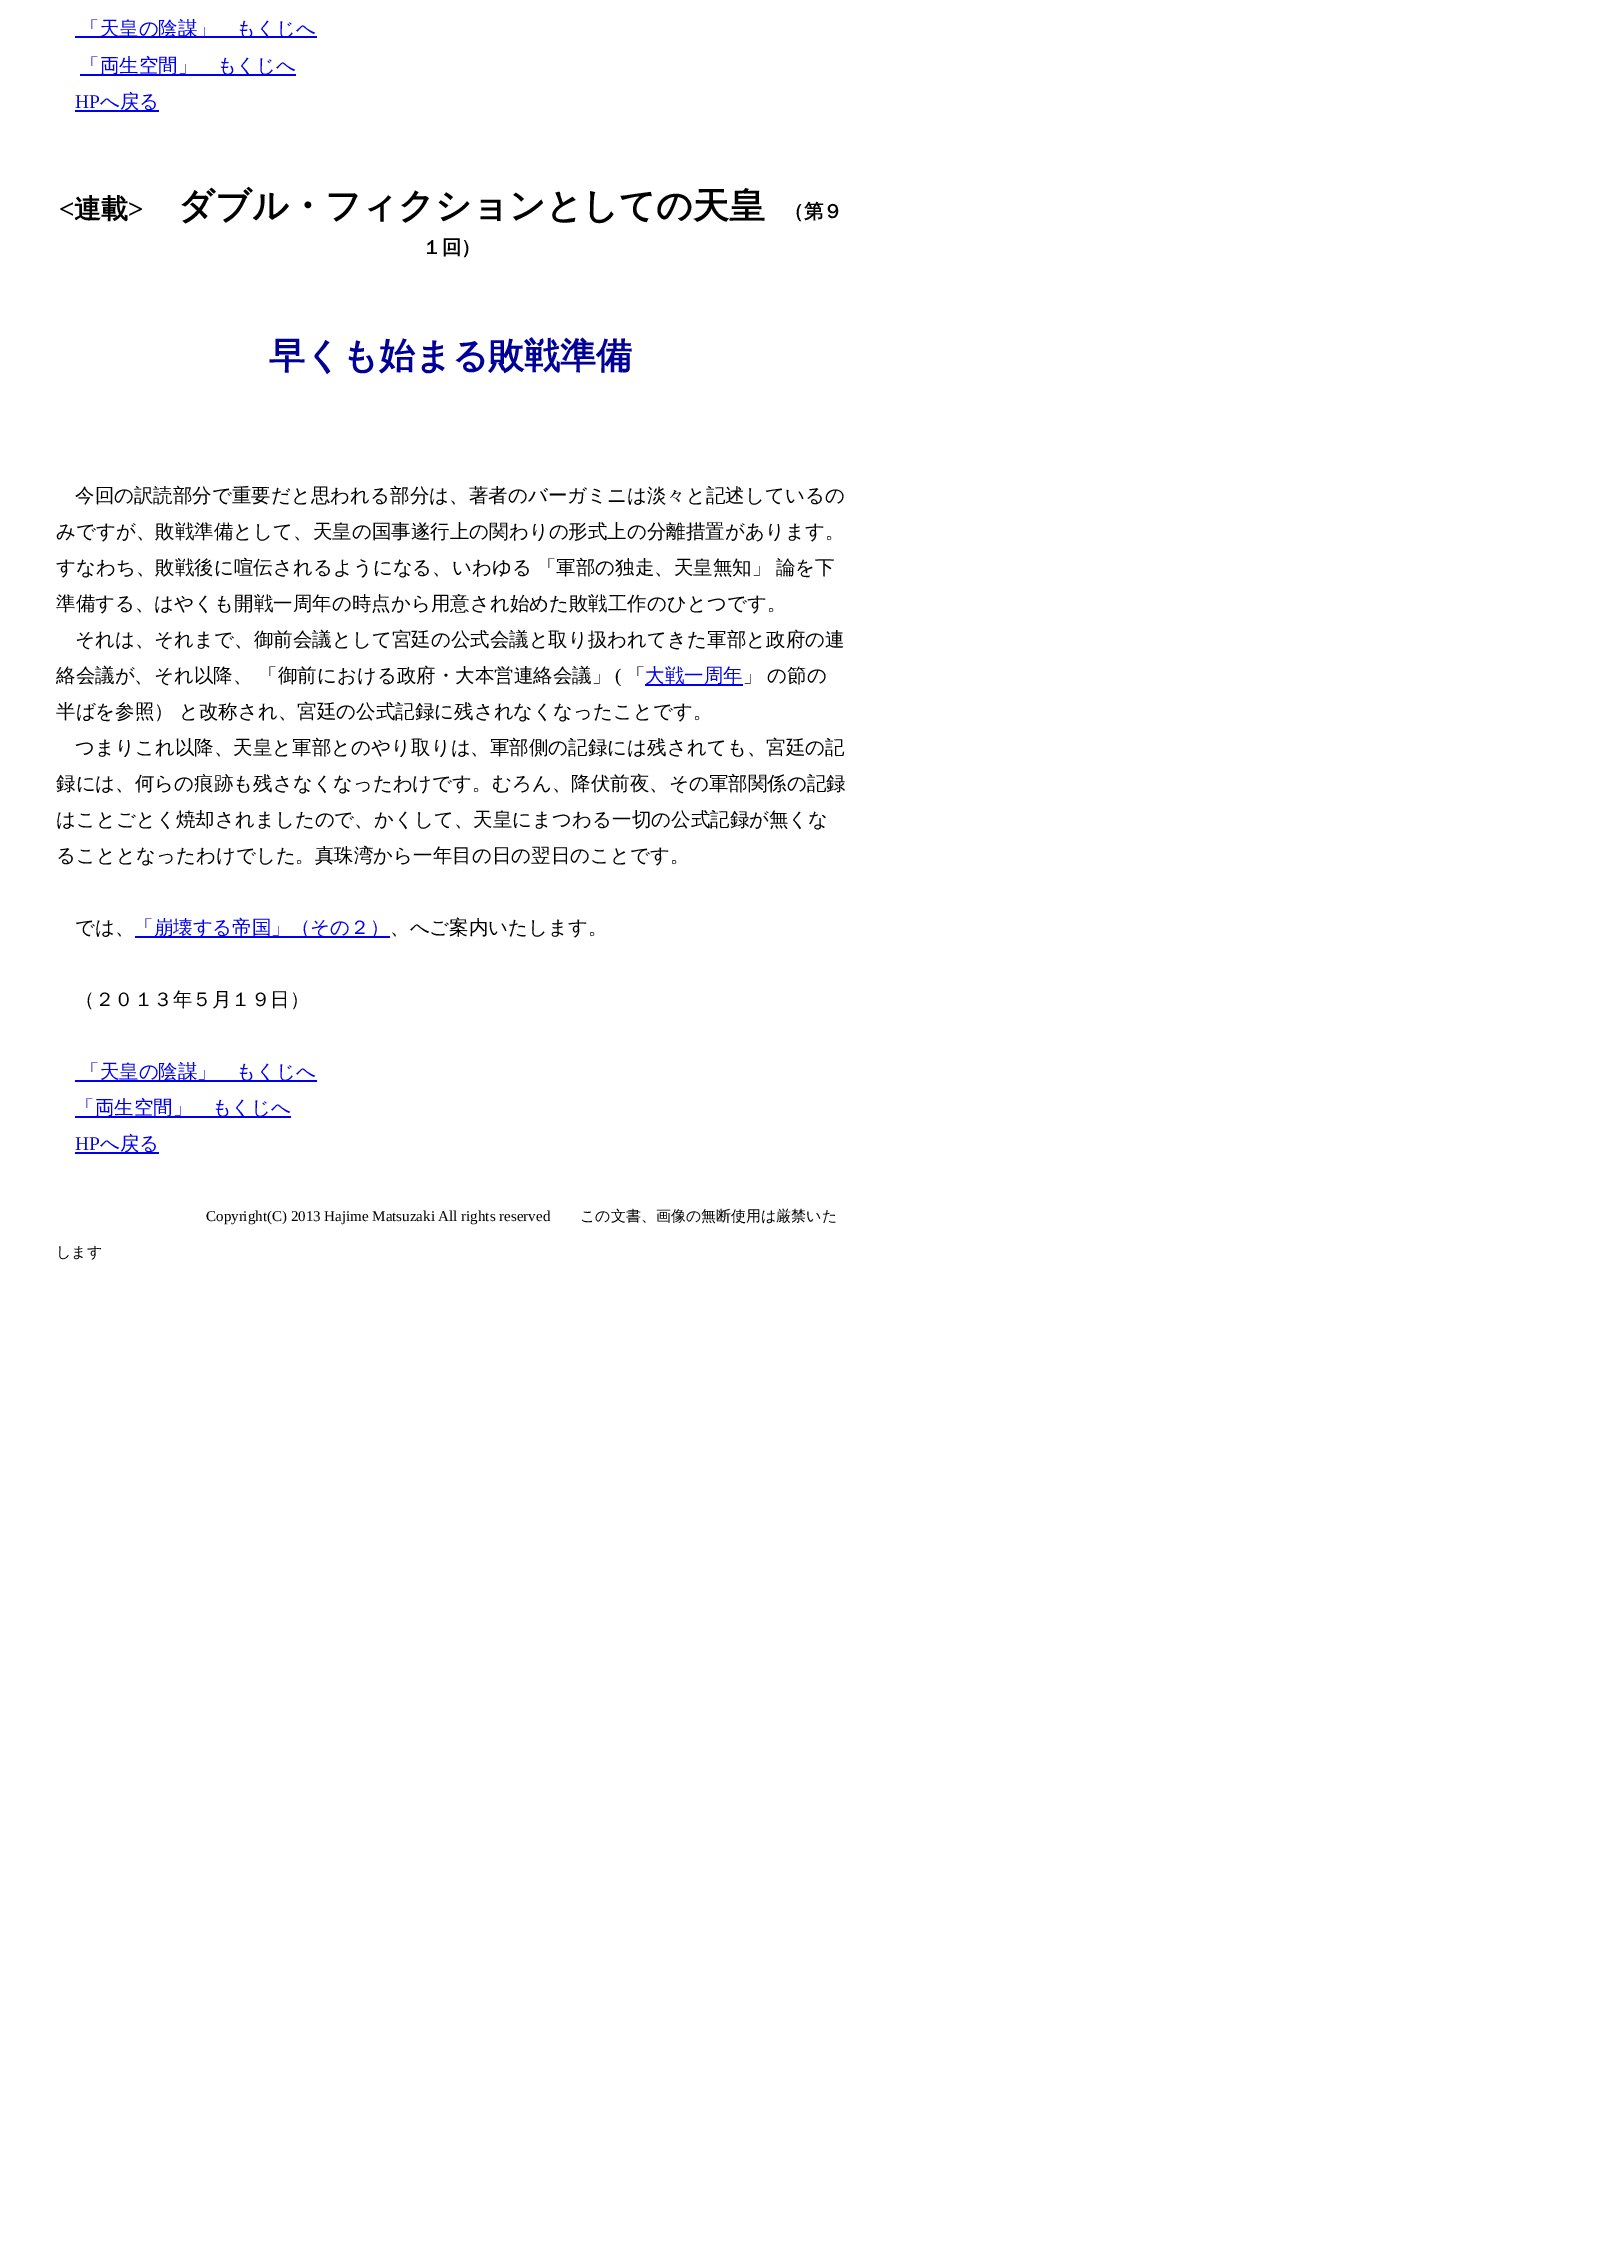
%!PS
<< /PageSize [1614 2267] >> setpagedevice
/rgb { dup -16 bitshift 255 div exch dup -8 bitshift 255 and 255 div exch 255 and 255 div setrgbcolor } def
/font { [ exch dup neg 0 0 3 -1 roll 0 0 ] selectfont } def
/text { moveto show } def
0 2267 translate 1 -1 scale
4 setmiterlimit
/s1 { /WenQuanYiZenHei-Medium 19.5 font 16#0000EE rgb } def
/s2 { /LiberationSerif-Regular 19.5 font 16#0000EE rgb } def
/s3 { /LiberationSerif-Bold 27 font 16#000000 rgb } def
/s4 { /WenQuanYiZenHei-Bold 27 font 16#000000 rgb } def
/s5 { /WenQuanYiZenHei-Bold 36 font 16#000000 rgb } def
/s6 { /WenQuanYiZenHei-Bold 19.5 font 16#000000 rgb } def
/s7 { /WenQuanYiZenHei-Bold 36 font 16#000099 rgb } def
/s8 { /WenQuanYiZenHei-Medium 19.5 font 16#000000 rgb } def
/s9 { /LiberationSerif-Regular 19.5 font 16#000000 rgb } def
/s10 { /LiberationSerif-Regular 15 font 16#000000 rgb } def
/s11 { /WenQuanYiZenHei-Medium 15 font 16#000000 rgb } def
16#FFFFFF rgb
0 0 1614 2267 rectfill
16#0000EE rgb
75 36 242 2 rectfill
s1
(「天皇の陰謀」　もくじへ) 80 35 text
80 74 216 2 rectfill
(「両生空間」　もくじへ) 80 72 text
s2
(HP) 75 108 text
75 110 84 2 rectfill
s1
(へ戻る) 100 108 text
s3
(<) 59 218 text
s4
(連載) 74 218 text
s3
(>) 128 218 text
s5
(ダブル・フィクションとしての天皇) 178 218 text
s6
(（第９) 784 218 text
(１回）) 422 254 text
s7
(早くも始まる敗戦準備) 269 368 text
s8
(今回の訳読部分で重要だと思われる部分は、著者のバーガミニは淡々と記述しているの) 75 502 text
(みですが、敗戦準備として、天皇の国事遂行上の関わりの形式上の分離措置があります。) 56 538 text
56 574 moveto -1 0 32 (すなわち、敗戦後に喧伝されるようになる、いわゆる 「軍部の独走、天皇無知」 論を下) widthshow
(準備する、はやくも開戦一周年の時点から用意され始めた敗戦工作のひとつです。) 56 610 text
(それは、それまで、御前会議として宮廷の公式会議と取り扱われてきた軍部と政府の連) 75 646 text
(絡会議が、それ以降、 「御前における政府・大本営連絡会議」) 56 682 text
s9
(\() 615 682 text
s8
(「) 626 682 text
16#0000EE rgb
645 684 98 2 rectfill
(大戦一周年) 645 682 text
16#000000 rgb
743 682 moveto -1 0 32 (」 の節の) widthshow
56 718 moveto -1 0 32 (半ばを参照） と改称され、宮廷の公式記録に残されなくなったことです。) widthshow
(つまりこれ以降、天皇と軍部とのやり取りは、軍部側の記録には残されても、宮廷の記) 75 754 text
(録には、何らの痕跡も残さなくなったわけです。むろん、降伏前夜、その軍部関係の記録) 56 790 text
(はことごとく焼却されましたので、かくして、天皇にまつわる一切の公式記録が無くな) 56 826 text
(ることとなったわけでした。真珠湾から一年目の日の翌日のことです。) 56 862 text
(では、) 75 934 text
16#0000EE rgb
135 936 255 2 rectfill
(「崩壊する帝国」（その２）) 134 934 text
s8
(、へご案内いたします。) 390 934 text
(（２０１３年５月１９日）) 75 1006 text
16#0000EE rgb
75 1080 242 2 rectfill
(「天皇の陰謀」　もくじへ) 80 1078 text
75 1116 216 2 rectfill
(「両生空間」　もくじへ) 75 1114 text
s2
(HP) 75 1150 text
75 1152 84 2 rectfill
s1
(へ戻る) 100 1150 text
s10
(Copyright\(C\) 2013 Hajime Matsuzaki All rights reserved) 206 1221 text
s11
(この文書、画像の無断使用は厳禁いた) 580 1221 text
(します) 56 1257 text
showpage
